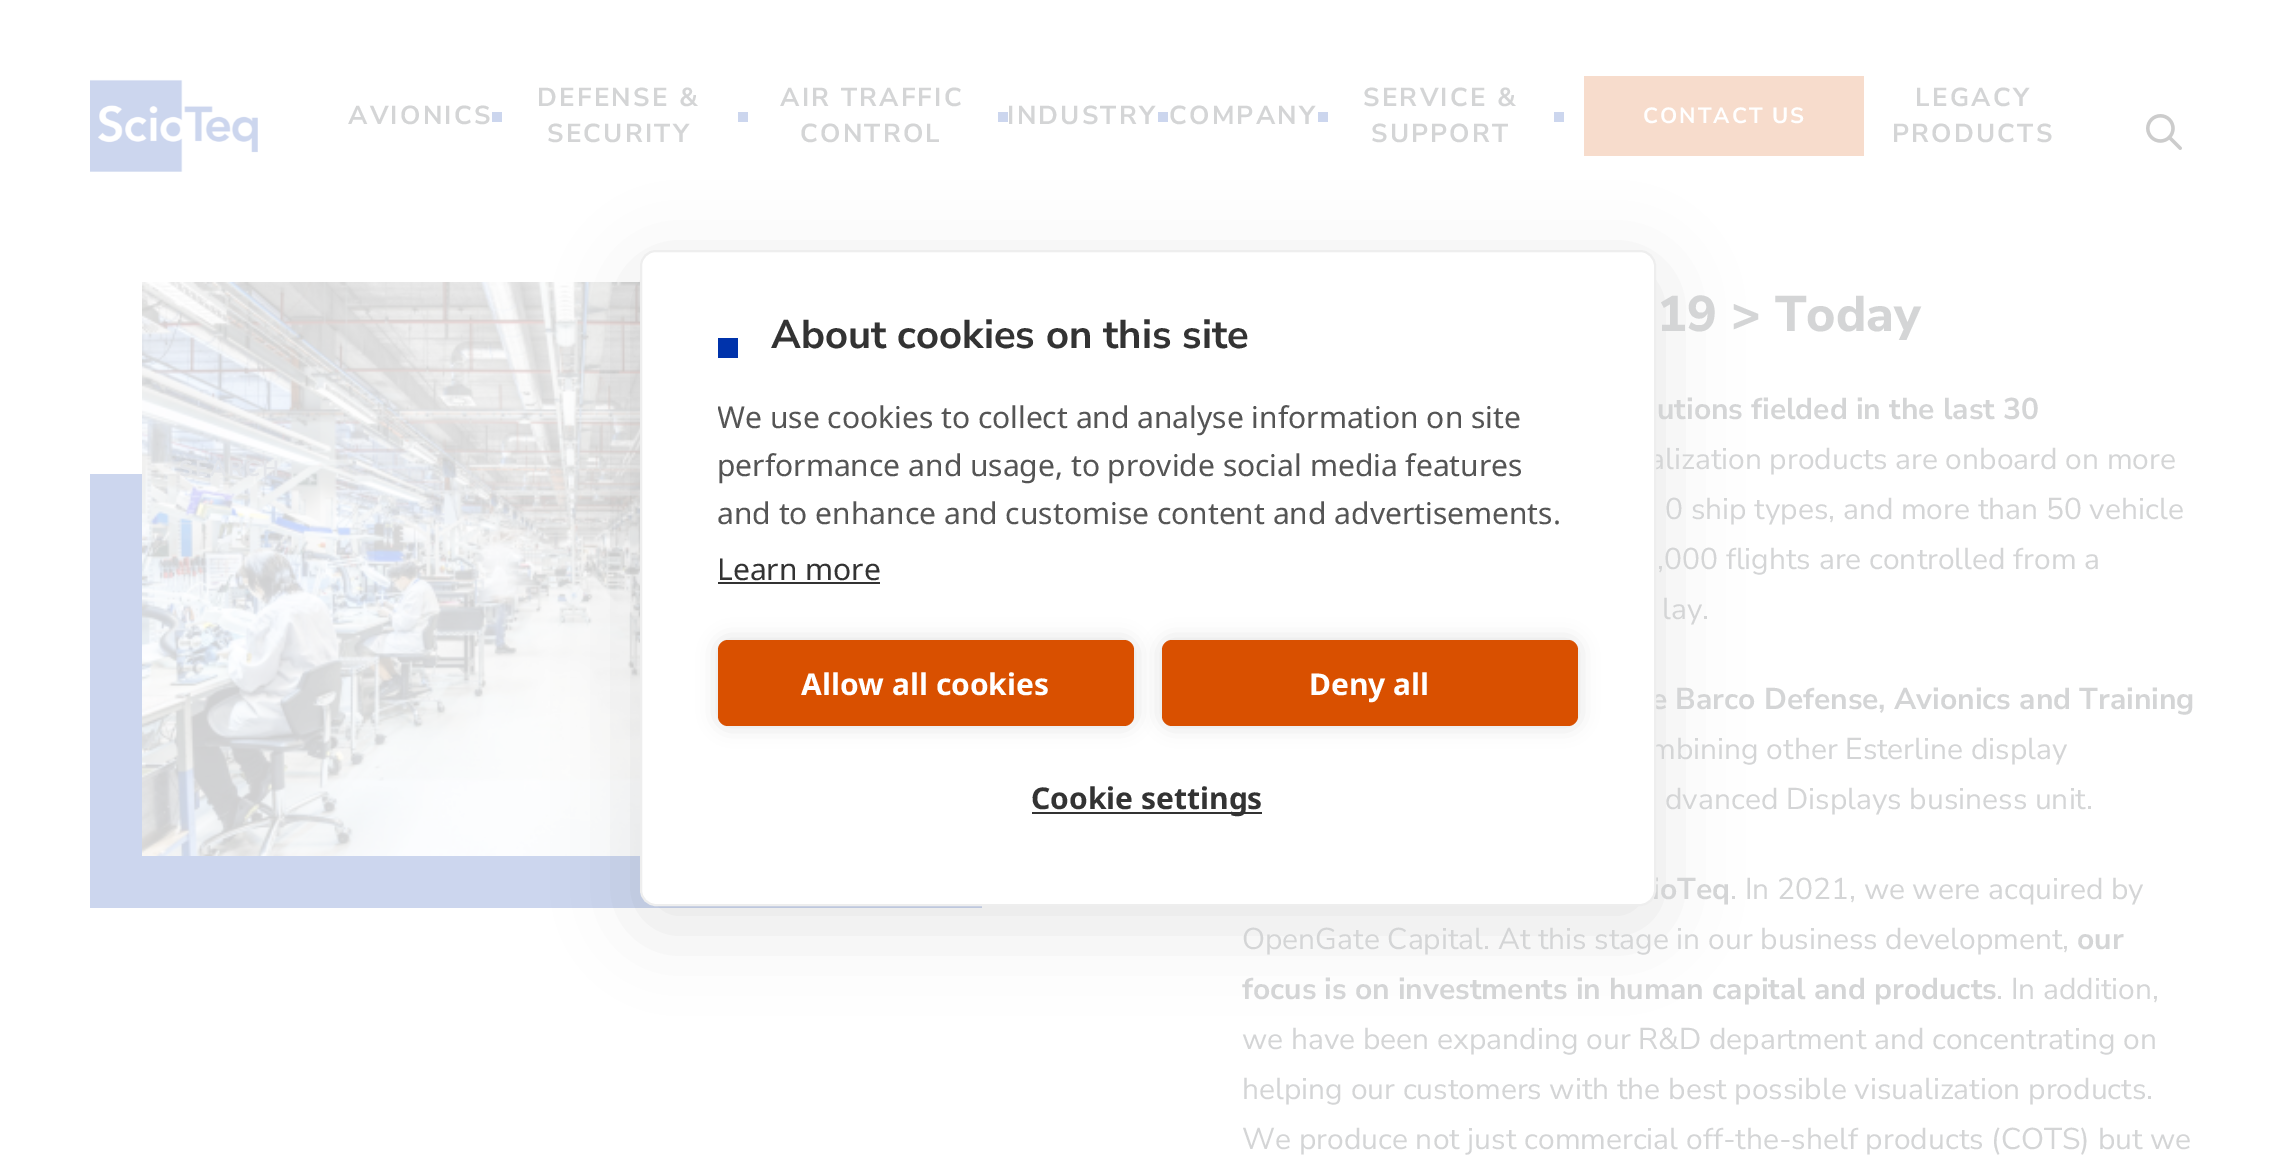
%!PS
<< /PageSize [2294 1156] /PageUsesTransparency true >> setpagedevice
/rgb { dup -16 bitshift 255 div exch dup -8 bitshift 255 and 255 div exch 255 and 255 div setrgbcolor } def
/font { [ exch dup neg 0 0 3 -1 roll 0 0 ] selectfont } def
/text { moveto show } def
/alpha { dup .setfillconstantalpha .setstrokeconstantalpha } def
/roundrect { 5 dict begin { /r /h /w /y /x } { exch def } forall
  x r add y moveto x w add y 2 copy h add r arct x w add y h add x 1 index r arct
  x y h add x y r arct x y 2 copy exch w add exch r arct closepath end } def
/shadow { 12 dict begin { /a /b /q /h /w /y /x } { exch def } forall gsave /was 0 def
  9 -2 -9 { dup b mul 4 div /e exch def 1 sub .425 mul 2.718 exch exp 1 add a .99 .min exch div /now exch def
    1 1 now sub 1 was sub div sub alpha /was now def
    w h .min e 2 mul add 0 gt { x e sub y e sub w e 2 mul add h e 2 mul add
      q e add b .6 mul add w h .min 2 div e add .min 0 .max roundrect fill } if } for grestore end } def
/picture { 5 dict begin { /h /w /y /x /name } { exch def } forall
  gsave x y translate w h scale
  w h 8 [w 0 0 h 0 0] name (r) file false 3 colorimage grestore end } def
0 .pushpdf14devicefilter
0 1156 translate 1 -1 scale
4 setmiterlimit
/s1 { /NunitoSans-Regular 30 font 16#D4D5D6 rgb } def
/s2 { /NunitoSans-Bold 30 font 16#D4D5D6 rgb } def
/s3 { /NunitoSans-Bold 40 font 16#333333 rgb } def
/s4 { /NotoSans-Regular 30 font 16#555555 rgb } def
/s5 { /NotoSans-Regular 30 font 16#333333 rgb } def
/s6 { /NotoSans-Bold 30 font 16#FFFFFF rgb } def
/s7 { /NotoSans-Bold 30 font 16#333333 rgb } def
/s8 { /NunitoSans-ExtraBold 50 font 16#D4D5D6 rgb } def
16#FFFFFF rgb
0 0 2294 1156 rectfill
(pic1.raw) 90 79 168 93 picture
/NunitoSans-Bold 26 font
16#D4D5D6 rgb
348 124 moveto 2.25 0 (AVIONICS) ashow
16#CCD6EE rgb
492 112 10 10 rectfill
16#D4D5D6 rgb
537 106 moveto 2.25 0 (DEFENSE &) ashow
547 142 moveto 2.25 0 (SECURITY) ashow
16#CCD6EE rgb
738 112 10 10 rectfill
16#D4D5D6 rgb
780 106 moveto 2.25 0 (AIR TRAFFIC) ashow
800 142 moveto 2.25 0 (CONTROL) ashow
16#CCD6EE rgb
998 112 10 10 rectfill
16#D4D5D6 rgb
1007 124 moveto 2.25 0 (INDUSTRY) ashow
16#CCD6EE rgb
1158 112 10 10 rectfill
16#D4D5D6 rgb
1169 124 moveto 2.25 0 (COMPANY) ashow
16#CCD6EE rgb
1318 112 10 10 rectfill
16#D4D5D6 rgb
1363 106 moveto 2.25 0 (SERVICE &) ashow
1371 142 moveto 2.25 0 (SUPPORT) ashow
16#CCD6EE rgb
1554 112 10 10 rectfill
16#F7DCCC rgb
1584 76 280 80 rectfill
/NunitoSans-Bold 22 font
16#FFFFFF rgb
1643 123 moveto 2 0 (CONTACT US) ashow
/NunitoSans-Bold 26 font
16#D4D5D6 rgb
1915 106 moveto 2.25 0 (LEGACY) ashow
1892 142 moveto 2.25 0 (PRODUCTS) ashow
(pic2.raw) 2146 114 36 36 picture
16#CCD6EE rgb
90 474 892 434 rectfill
(pic3.raw) 142 282 498 574 picture
/NunitoSans-Bold 22 font
16#E4E6EA rgb
179 476 moveto 2 0 (SEARCH) ashow
16#000000 rgb
640 270 1016 656 16 40 0.1 shadow
s1
(alization products are onboard on more) 1649 469 text
s2
(e Barco Defense, Avionics and Training) 1651 709 text
s1
(mbining other Esterline display) 1650 759 text
s2
(ioTeq) 1652 899 text
16#FFFFFF rgb
641 251 1014 654 15 roundrect gsave fill grestore
16#EEEEEE rgb
2 setlinewidth
stroke
16#0033AB rgb
718 338 20 20 rectfill
s3
(About cookies on this site) 771 348 text
gsave
718 316 860 324 rectclip
s4
(We use cookies to collect and analyse information on site) 717 428 text
grestore
s4
(performance and usage, to provide social media features) 717 476 text
(and to enhance and customise content and advertisements.) 717 524 text
s5
(Learn more) 717 580 text
718 582 162 2 rectfill
16#000000 rgb
718 640 416 86 10 10 0.12 shadow
16#D95000 rgb
718 640 416 86 10 roundrect fill
s6
(Allow all cookies) 801 695 text
16#000000 rgb
1162 640 416 86 10 10 0.12 shadow
16#D95000 rgb
1162 640 416 86 10 roundrect fill
s6
(Deny all) 1309 695 text
16#333333 rgb
1032 812 230 2 rectfill
(Cookie settings) 1031 809 text
s8
(19 > Today) 1657 331 text
s2
(utions fielded in the last 30) 1657 419 text
s1
(0 ship types, and more than 50 vehicle) 1665 519 text
(,000 flights are controlled from a) 1657 569 text
(lay.) 1662 619 text
(dvanced Displays business unit.) 1665 809 text
(. In 2021, we were acquired by) 1730 899 text
(OpenGate Capital. At this stage in our business development,) 1242 949 text
s2
(our) 2077 949 text
(focus is on investments in human capital and products) 1242 999 text
s1
(. In addition,) 1996 999 text
(we have been expanding our R&D department and concentrating on) 1242 1049 text
(helping our customers with the best possible visualization products.) 1242 1099 text
(We produce not just commercial off-the-shelf products \(COTS\) but we) 1242 1149 text
.poppdf14devicefilter showpage
